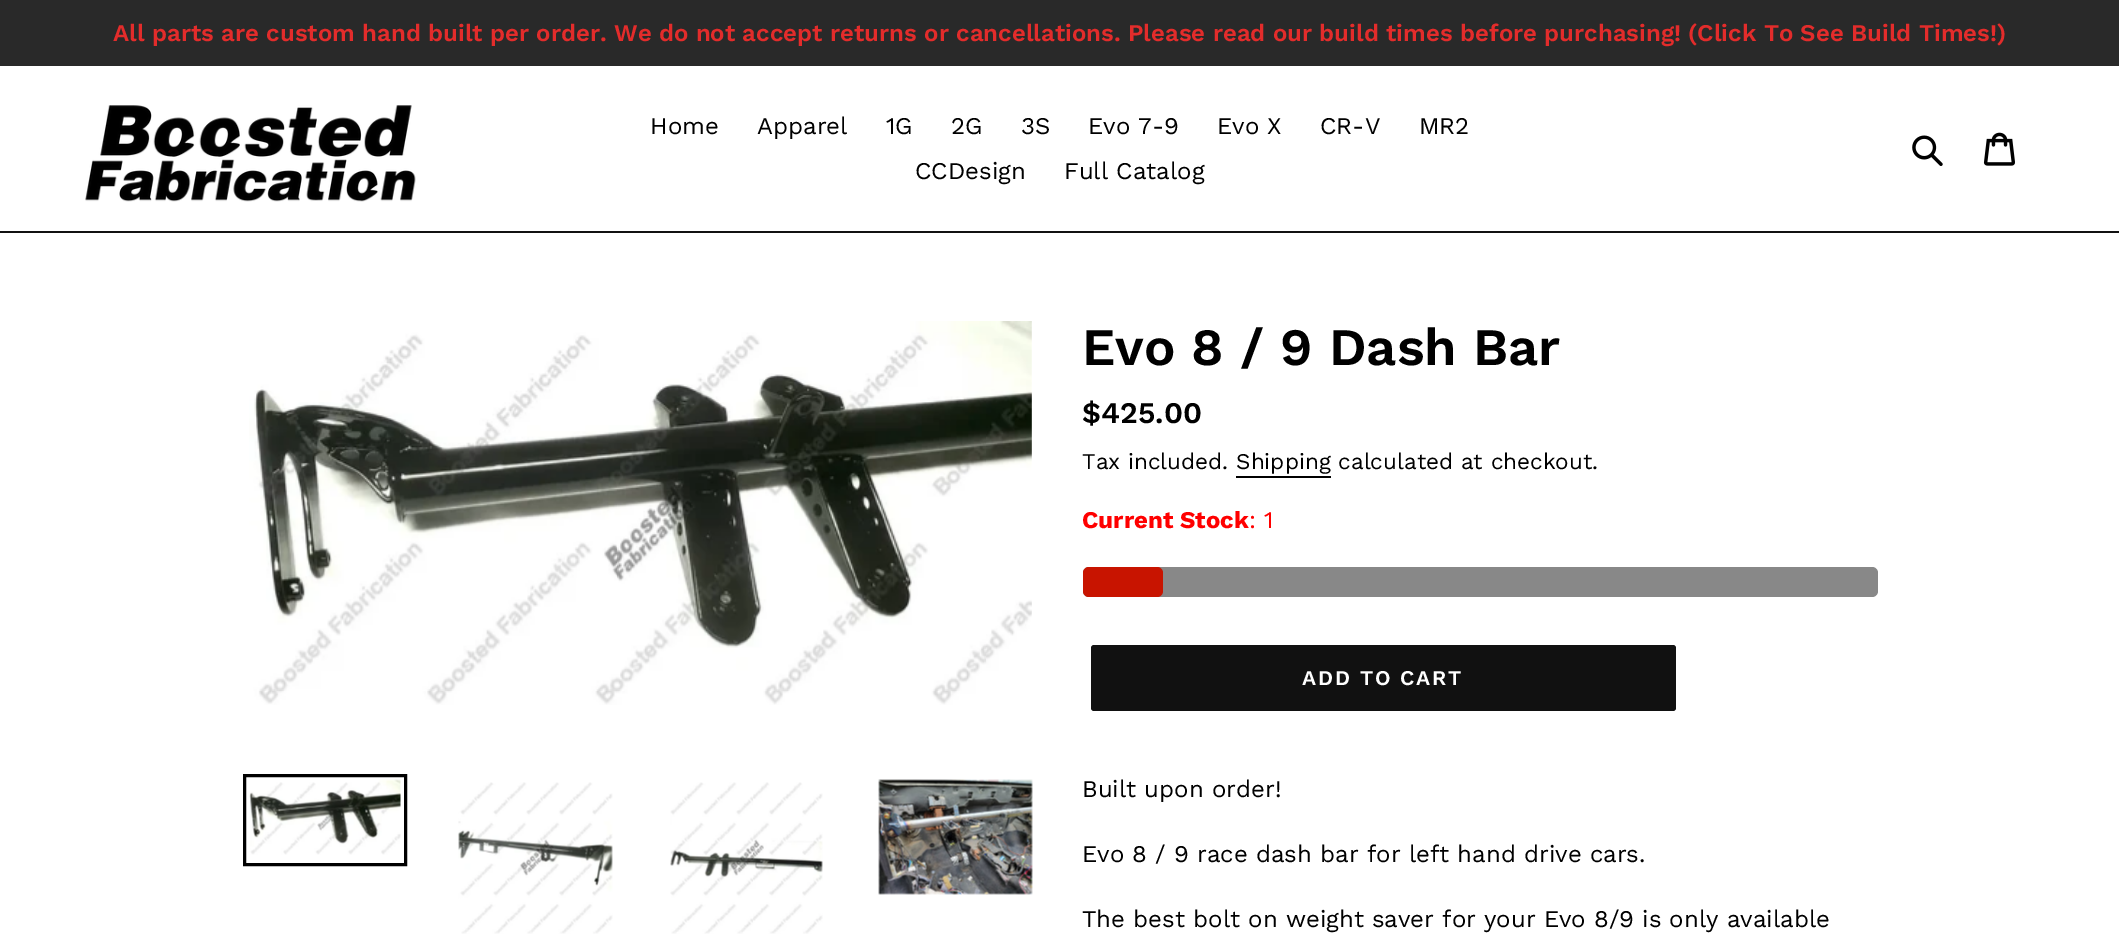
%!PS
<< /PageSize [2119 934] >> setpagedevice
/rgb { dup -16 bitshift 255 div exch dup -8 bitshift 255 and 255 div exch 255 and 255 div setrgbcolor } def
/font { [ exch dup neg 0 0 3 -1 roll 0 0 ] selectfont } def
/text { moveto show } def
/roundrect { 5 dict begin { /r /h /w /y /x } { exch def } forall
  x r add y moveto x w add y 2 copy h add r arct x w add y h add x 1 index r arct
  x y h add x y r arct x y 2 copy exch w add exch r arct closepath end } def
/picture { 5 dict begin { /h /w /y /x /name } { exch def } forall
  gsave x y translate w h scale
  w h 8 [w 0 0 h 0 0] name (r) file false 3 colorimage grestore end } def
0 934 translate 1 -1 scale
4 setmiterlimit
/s1 { /WorkSans-SemiBold 24 font 16#E32C2B rgb } def
/s2 { /WorkSans-Regular 24 font 16#000000 rgb } def
/s3 { /WorkSans-SemiBold 52.5 font 16#000000 rgb } def
/s4 { /WorkSans-SemiBold 30 font 16#000000 rgb } def
/s5 { /WorkSans-Regular 22.5 font 16#000000 rgb } def
/s6 { /WorkSans-Bold 24 font 16#FF0000 rgb } def
/s7 { /WorkSans-Regular 24 font 16#FF0000 rgb } def
16#FFFFFF rgb
0 0 2119 934 rectfill
16#292929 rgb
0 0 2119 66 rectfill
s1
(All parts are custom hand built per order. We do not accept returns or cancellations. Please read our build times before purchasing! \(Click To See Build Times!\)) 113 41 text
16#111111 rgb
0 231 2119 2 rectfill
(pic1.raw) 85 105 331 97 picture
s2
(Home) 650 134 text
(Apparel) 757 134 text
(1G) 886 134 text
(2G) 951 134 text
(3S) 1021 134 text
(Evo 7-9) 1088 134 text
(Evo X) 1217 134 text
(CR-V) 1320 134 text
(MR2) 1419 134 text
(CCDesign) 915 179 text
(Full Catalog) 1064 179 text
(pic2.raw) 1912 135 31 31 picture
(pic3.raw) 1983 132 32 34 picture
(pic4.raw) 249 321 783 384 picture
3 setlinewidth
244.5 775.5 161 89 rectstroke
(pic5.raw) 249 779 152 76 picture
(pic6.raw) 458 782 155 152 picture
(pic7.raw) 670 782 153 152 picture
(pic8.raw) 878 779 155 116 picture
s3
(Evo 8 / 9 Dash Bar) 1082 365 text
s4
($425.00) 1082 423 text
s5
(Tax included. Shipping calculated at checkout.) 1082 469 text
1236 476 95 2 rectfill
s6
(Current Stock) 1082 528 text
s7
(: 1) 1249 528 text
16#888888 rgb
1083 567 795 30 6 roundrect fill
16#C81400 rgb
1083 567 80 30 6 roundrect fill
16#111111 rgb
1091 645 585 66 3 roundrect fill
/WorkSans-SemiBold 21 font
16#FFFFFF rgb
1302 685 moveto 1.75 0 (ADD TO CART) ashow
s2
(Built upon order!) 1082 797 text
(Evo 8 / 9 race dash bar for left hand drive cars.) 1082 862 text
(The best bolt on weight saver for your Evo 8/9 is only available) 1082 927 text
showpage
